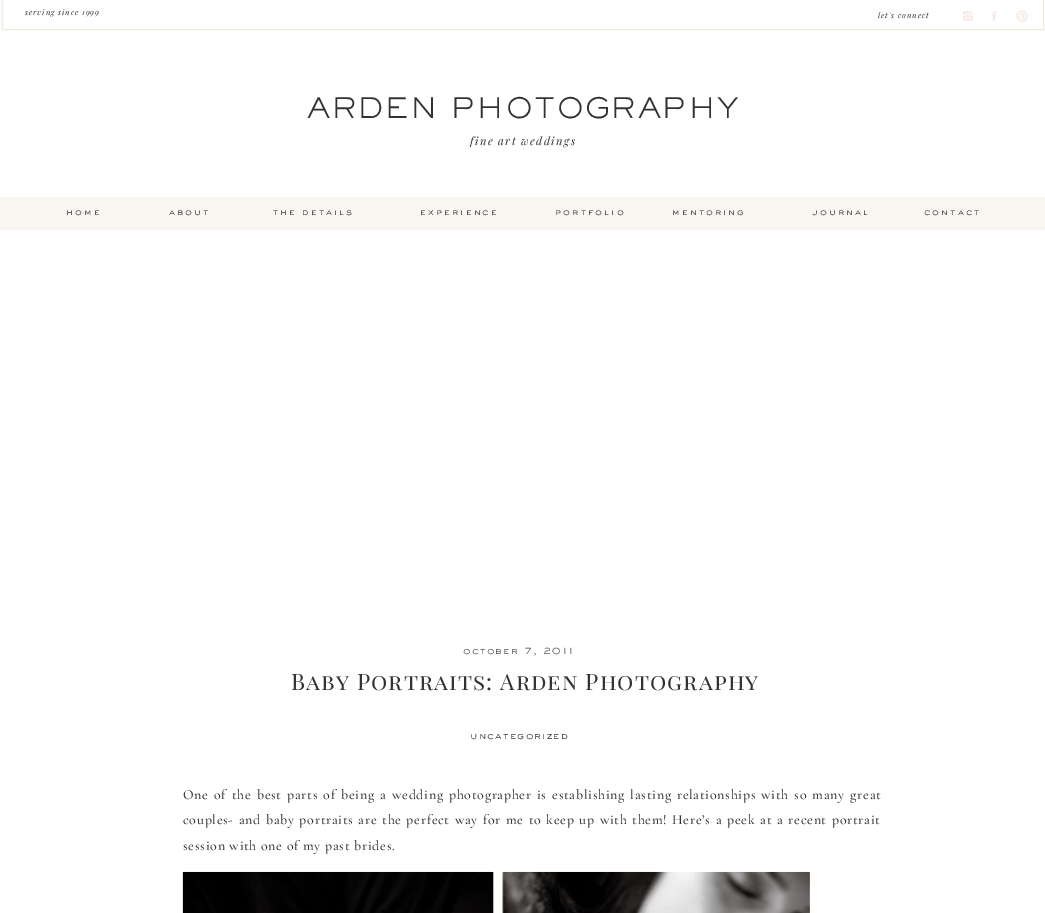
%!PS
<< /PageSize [1045 913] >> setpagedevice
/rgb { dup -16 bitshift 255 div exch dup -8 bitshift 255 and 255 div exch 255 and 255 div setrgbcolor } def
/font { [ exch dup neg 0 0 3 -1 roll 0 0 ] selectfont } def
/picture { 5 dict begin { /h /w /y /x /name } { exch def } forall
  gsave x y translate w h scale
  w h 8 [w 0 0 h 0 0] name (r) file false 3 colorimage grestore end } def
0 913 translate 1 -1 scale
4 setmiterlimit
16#FFFFFF rgb
0 0 1045 913 rectfill
16#F0E9DE rgb
0.9 setlinewidth
2.45 -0.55 1041.1 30.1 rectstroke
/PlayfairDisplay-Italic 7.75 font
16#323232 rgb
25 15 moveto 0.9 0 (serving since 1999) ashow
878 18 moveto 0.9 0 (let's connect) ashow
(pic1.raw) 963 11 10 10 picture
(pic2.raw) 991 11 6 10 picture
(pic3.raw) 1016 10 12 12 picture
/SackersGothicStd-Light 27.9 font
307 118 moveto 1.4 0 (ARDEN PHOTOGRAPHY) ashow
/PlayfairDisplay-Italic 11.25 font
470 145 moveto 1.4 0 (fine art weddings) ashow
16#F9F6F2 rgb
0 197 1045 33 rectfill
/SackersGothicStd-Light 8.75 font
16#323232 rgb
66 215 moveto 2 0 (home) ashow
169 215 moveto 2 0 (about) ashow
273 215 moveto 2 0 (the details) ashow
420 215 moveto 2 0 (experience) ashow
555 215 moveto 2 0 (portfolio) ashow
672 215 moveto 2 0 (mentoring) ashow
812 215 moveto 2 0 (journal) ashow
924 215 moveto 2 0 (contact) ashow
/SackersGothicStd-Light 9.5 font
16#4F4E4D rgb
463 654 moveto 1.1 0 (october 7, 2011) ashow
/PlayfairDisplaySC-Regular 22.6 font
16#323232 rgb
291 690 moveto 1.1 0 (Baby Portraits: Arden Photography) ashow
/SackersGothicStd-Light 9.5 font
470 739 moveto 1.1 0 (uncategorized) ashow
/CormorantGaramond-Light 13.93 font
183 799 moveto 1.4 0 32 0.7 0 (One of the best parts of being a wedding photographer is establishing lasting relationships with so many great) awidthshow
183 824 moveto 0.9 0 32 0.7 0 (couples- and baby portraits are the perfect way for me to keep up with them! Here’s a peek at a recent portrait) awidthshow
183 850 moveto 0.7 0 (session with one of my past brides.) ashow
(pic4.raw) 182 871 628 42 picture
showpage
